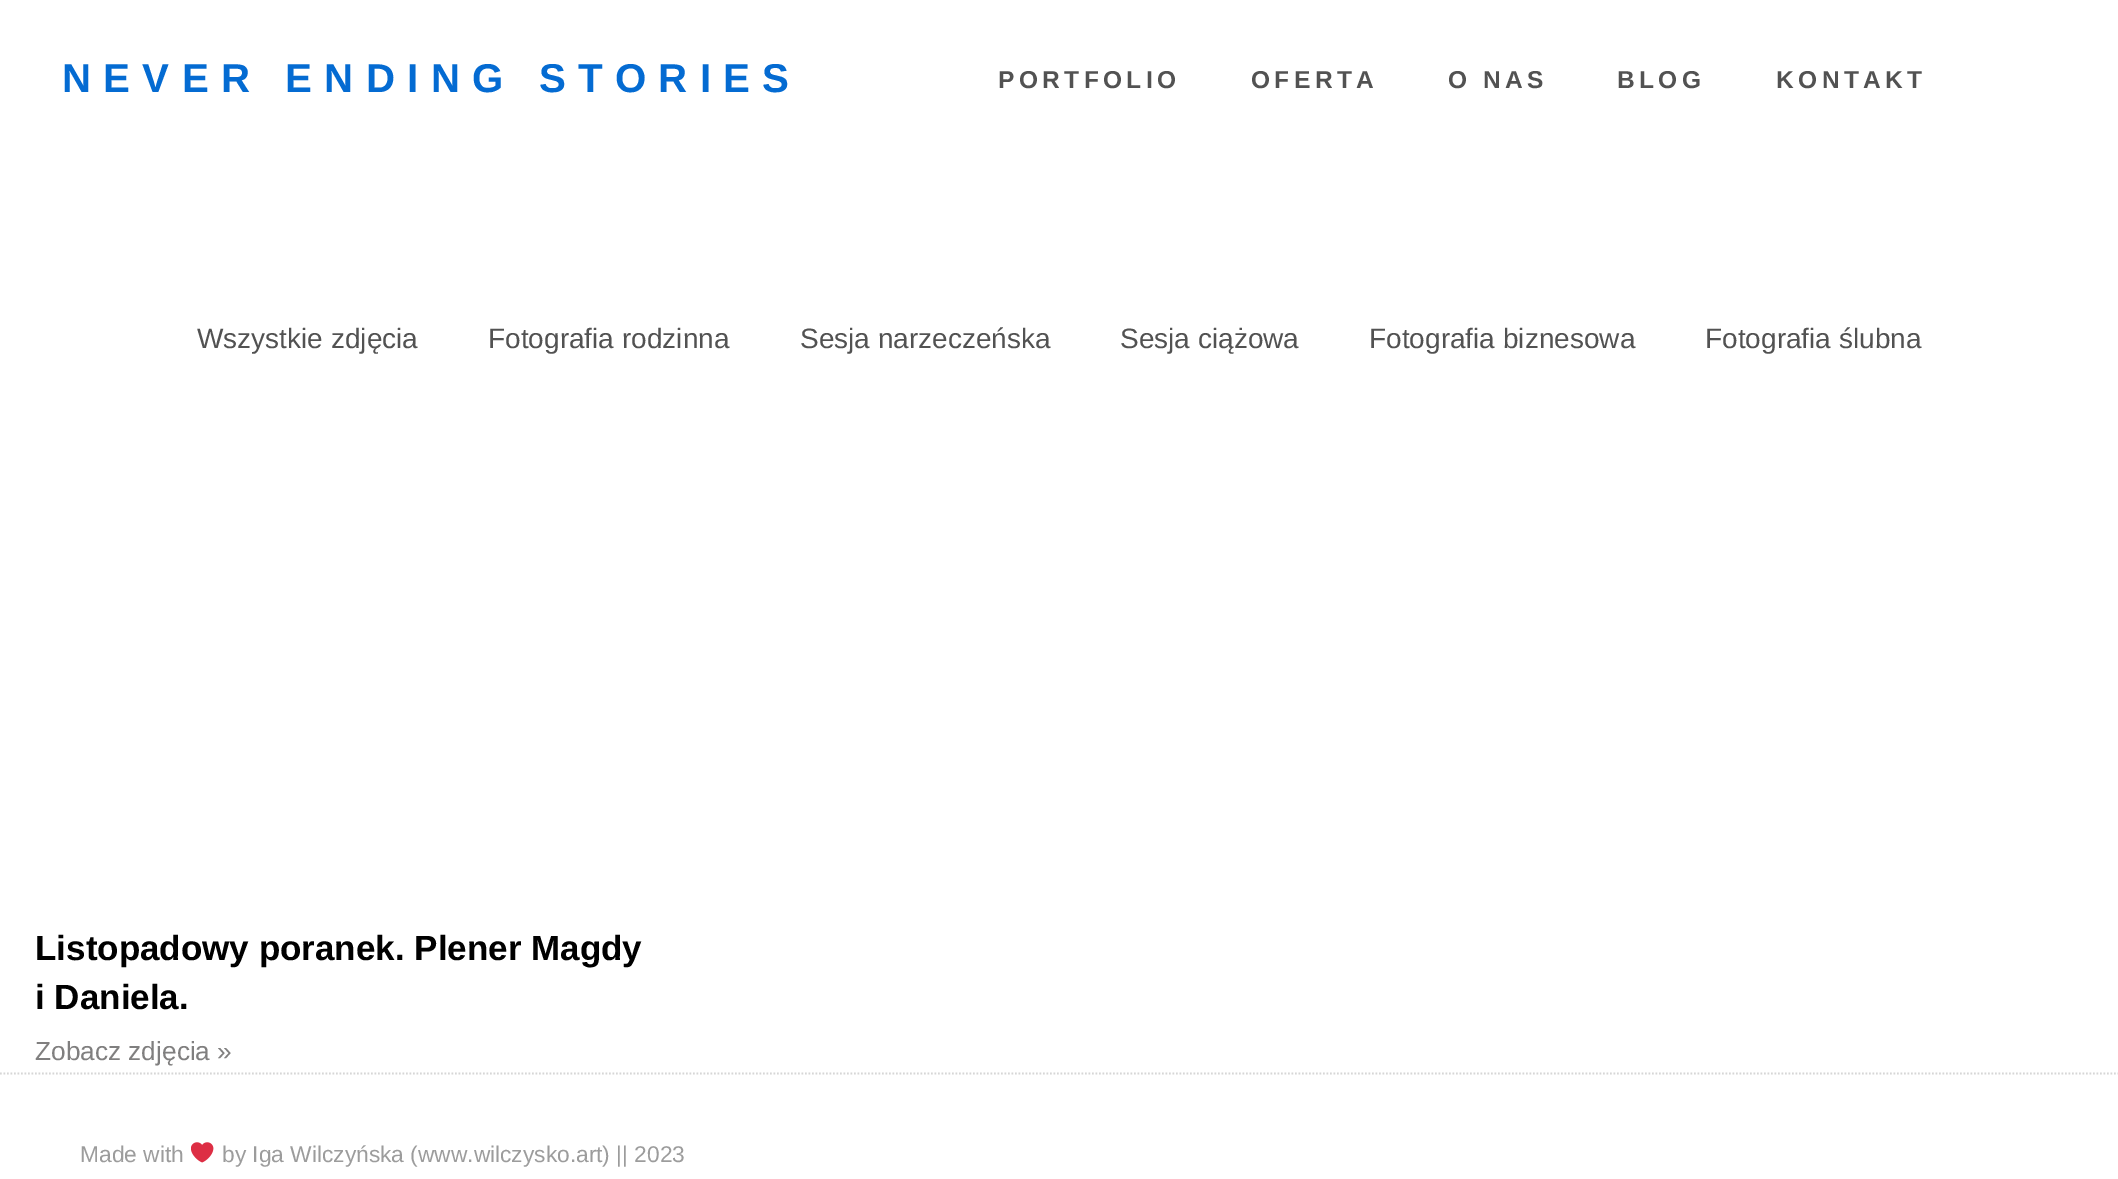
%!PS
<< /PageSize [2118 1179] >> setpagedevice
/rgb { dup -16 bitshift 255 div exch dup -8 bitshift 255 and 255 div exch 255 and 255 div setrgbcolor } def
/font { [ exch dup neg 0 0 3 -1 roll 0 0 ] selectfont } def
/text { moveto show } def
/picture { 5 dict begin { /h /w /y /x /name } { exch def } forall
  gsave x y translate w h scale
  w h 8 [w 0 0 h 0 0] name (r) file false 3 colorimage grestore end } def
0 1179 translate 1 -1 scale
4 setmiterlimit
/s1 { /LiberationSans-Regular 28 font 16#525252 rgb } def
/s2 { /LiberationSans-Bold 35 font 16#000000 rgb } def
/s3 { /LiberationSans-Regular 26.25 font 16#807F7F rgb } def
/s4 { /LiberationSans-Regular 22.75 font 16#9C9C9C rgb } def
16#FFFFFF rgb
0 0 2118 1179 rectfill
/LiberationSans-Bold 40.25 font
16#046BD2 rgb
62 92 moveto 12.25 0 (NEVER ENDING STORIES) ashow
/LiberationSans-Bold 24.5 font
16#525252 rgb
998 88 moveto 4.4 0 (PORTFOLIO) ashow
1251 88 moveto 4.4 0 (OFERTA) ashow
1448 88 moveto 4.4 0 (O NAS) ashow
1617 88 moveto 4.4 0 (BLOG) ashow
1776 88 moveto 4.4 0 (KONTAKT) ashow
s1
(Wszystkie zdjęcia) 197 348 text
(Fotografia rodzinna) 488 348 text
(Sesja narzeczeńska) 800 348 text
(Sesja ciążowa) 1120 348 text
(Fotografia biznesowa) 1369 348 text
(Fotografia ślubna) 1705 348 text
s2
(Listopadowy poranek. Plener Magdy) 35 960 text
(i Daniela.) 35 1009 text
s3
(Zobacz zdjęcia ») 35 1060 text
16#D6D6D6 rgb
1.8 setlinewidth
[1.75 1.75] 0 setdash
0 1073.5 moveto 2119 1073.5 lineto stroke
s4
(Made with) 80 1162 text
(pic1.raw) 191 1142 23 21 picture
(by Iga Wilczyńska \(www.wilczysko.art\) || 2023) 222 1162 text
showpage
